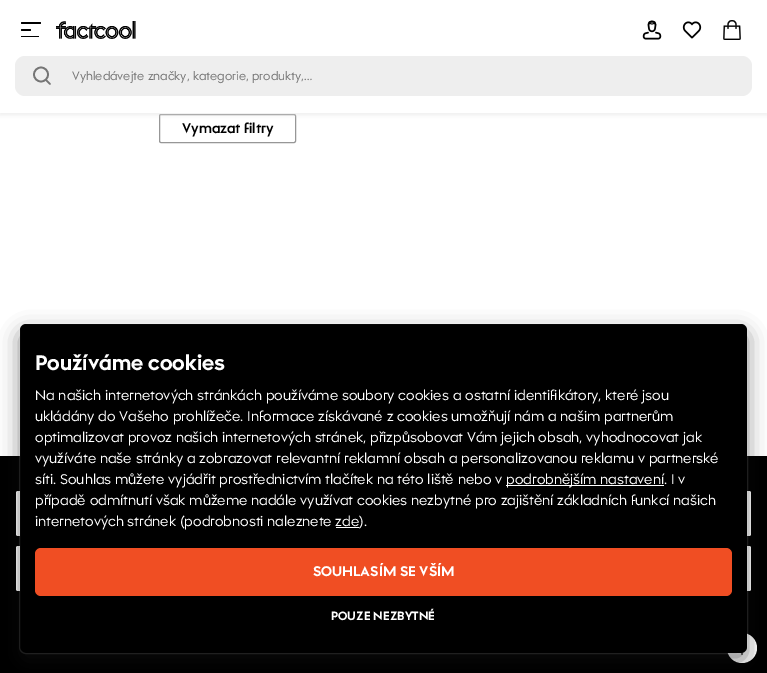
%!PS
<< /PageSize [767 673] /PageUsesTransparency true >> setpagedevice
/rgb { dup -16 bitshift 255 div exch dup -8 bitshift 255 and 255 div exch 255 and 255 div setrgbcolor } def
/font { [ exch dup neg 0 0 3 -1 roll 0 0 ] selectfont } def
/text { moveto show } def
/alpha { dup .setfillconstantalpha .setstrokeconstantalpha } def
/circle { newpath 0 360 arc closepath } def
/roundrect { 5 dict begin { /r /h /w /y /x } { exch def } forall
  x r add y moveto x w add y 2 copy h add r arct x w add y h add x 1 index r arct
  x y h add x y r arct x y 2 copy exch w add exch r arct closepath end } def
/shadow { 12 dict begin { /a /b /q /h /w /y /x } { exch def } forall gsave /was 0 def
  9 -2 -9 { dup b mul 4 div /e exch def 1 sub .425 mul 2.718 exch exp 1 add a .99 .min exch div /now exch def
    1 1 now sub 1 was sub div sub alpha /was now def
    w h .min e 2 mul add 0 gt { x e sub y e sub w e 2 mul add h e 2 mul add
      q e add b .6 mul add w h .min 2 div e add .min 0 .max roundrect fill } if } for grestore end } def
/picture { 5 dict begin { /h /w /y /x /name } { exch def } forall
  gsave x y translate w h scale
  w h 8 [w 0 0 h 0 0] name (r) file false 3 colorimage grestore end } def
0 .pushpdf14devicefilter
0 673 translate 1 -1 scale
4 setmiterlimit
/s1 { /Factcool-Regular 12 font 16#757575 rgb } def
/s2 { /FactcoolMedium-Medium 14 font 16#000000 rgb } def
/s3 { /Factcool-Bold 21 font 16#FFFFFF rgb } def
/s4 { /Factcool-Regular 14 font 16#FFFFFF rgb } def
/s5 { /Factcool-Bold 14 font 16#FFFFFF rgb } def
/s6 { /Factcool-Bold 12 font 16#FFFFFF rgb } def
16#FFFFFF rgb
0 0 767 673 rectfill
16#979797 rgb
159.5 114.5 136 28 1.5 roundrect stroke
16#DCDCDC rgb
0 2 767 113 0 2 0.5 shadow
16#FFFFFF rgb
0 0 767 113 rectfill
16#000000 rgb
21 22 20 2 1 roundrect fill
21 29 10 2 1 roundrect fill
21 36 18 1 0.5 roundrect fill
(pic1.raw) 56 21 80 18 picture
(pic2.raw) 642 20 20 20 picture
(pic3.raw) 682 21 20 18 picture
(pic4.raw) 723 20 18 20 picture
16#EEEEEE rgb
15 56 737 40 10 roundrect fill
16#757575 rgb
1.7 setlinewidth
41 74.5 7 circle stroke
1 setlinecap
50 84 moveto 46 80 lineto stroke
s1
(Vyhledávejte značky, kategorie, produkty,…) 72 80 text
s2
(Vymazat filtry) 182 133 text
0 456 767 217 rectfill
16#FFFFFF rgb
742 648 15 circle fill
(pic5.raw) 741 647 6 8 picture
16 491 735 45 2 roundrect fill
16 546 735 45 2 roundrect fill
16#111113 rgb
20 332 727 329 6 10 0.5 shadow
16#000000 rgb
20 324 727 329 6 roundrect fill
0.1 alpha
16#FFFFFF rgb
1 setlinewidth
0 setlinecap
19.5 323.5 728 330 6.5 roundrect stroke
1 alpha
s3
(Používáme cookies) 35 370 text
s4
(Na našich internetových stránkách používáme soubory cookies a ostatní identifikátory, které jsou) 35 400 text
(ukládány do Vašeho prohlížeče. Informace získávané z cookies umožňují nám a našim partnerům) 35 421 text
(optimalizovat provoz našich internetových stránek, přizpůsobovat Vám jejich obsah, vyhodnocovat jak) 35 442 text
(využíváte naše stránky a zobrazovat relevantní reklamní obsah a personalizovanou reklamu v partnerské) 35 463 text
(síti. Souhlas můžete vyjádřit prostřednictvím tlačítek na této liště nebo v) 35 484 text
506 485 158 1 rectfill
(podrobnějším nastavení. I v) 506 484 text
(případě odmítnutí však můžeme nadále využívat cookies nezbytné pro zajištění základních funkcí našich) 35 505 text
(internetových stránek \(podrobnosti naleznete zde\).) 35 526 text
336 527 23 1 rectfill
16#F04E23 rgb
35 548 697 48 6 roundrect fill
s5
(SOUHLASÍM SE VŠÍM) 313 576 text
s6
(POUZE NEZBYTNÉ) 331 620 text
.poppdf14devicefilter showpage
